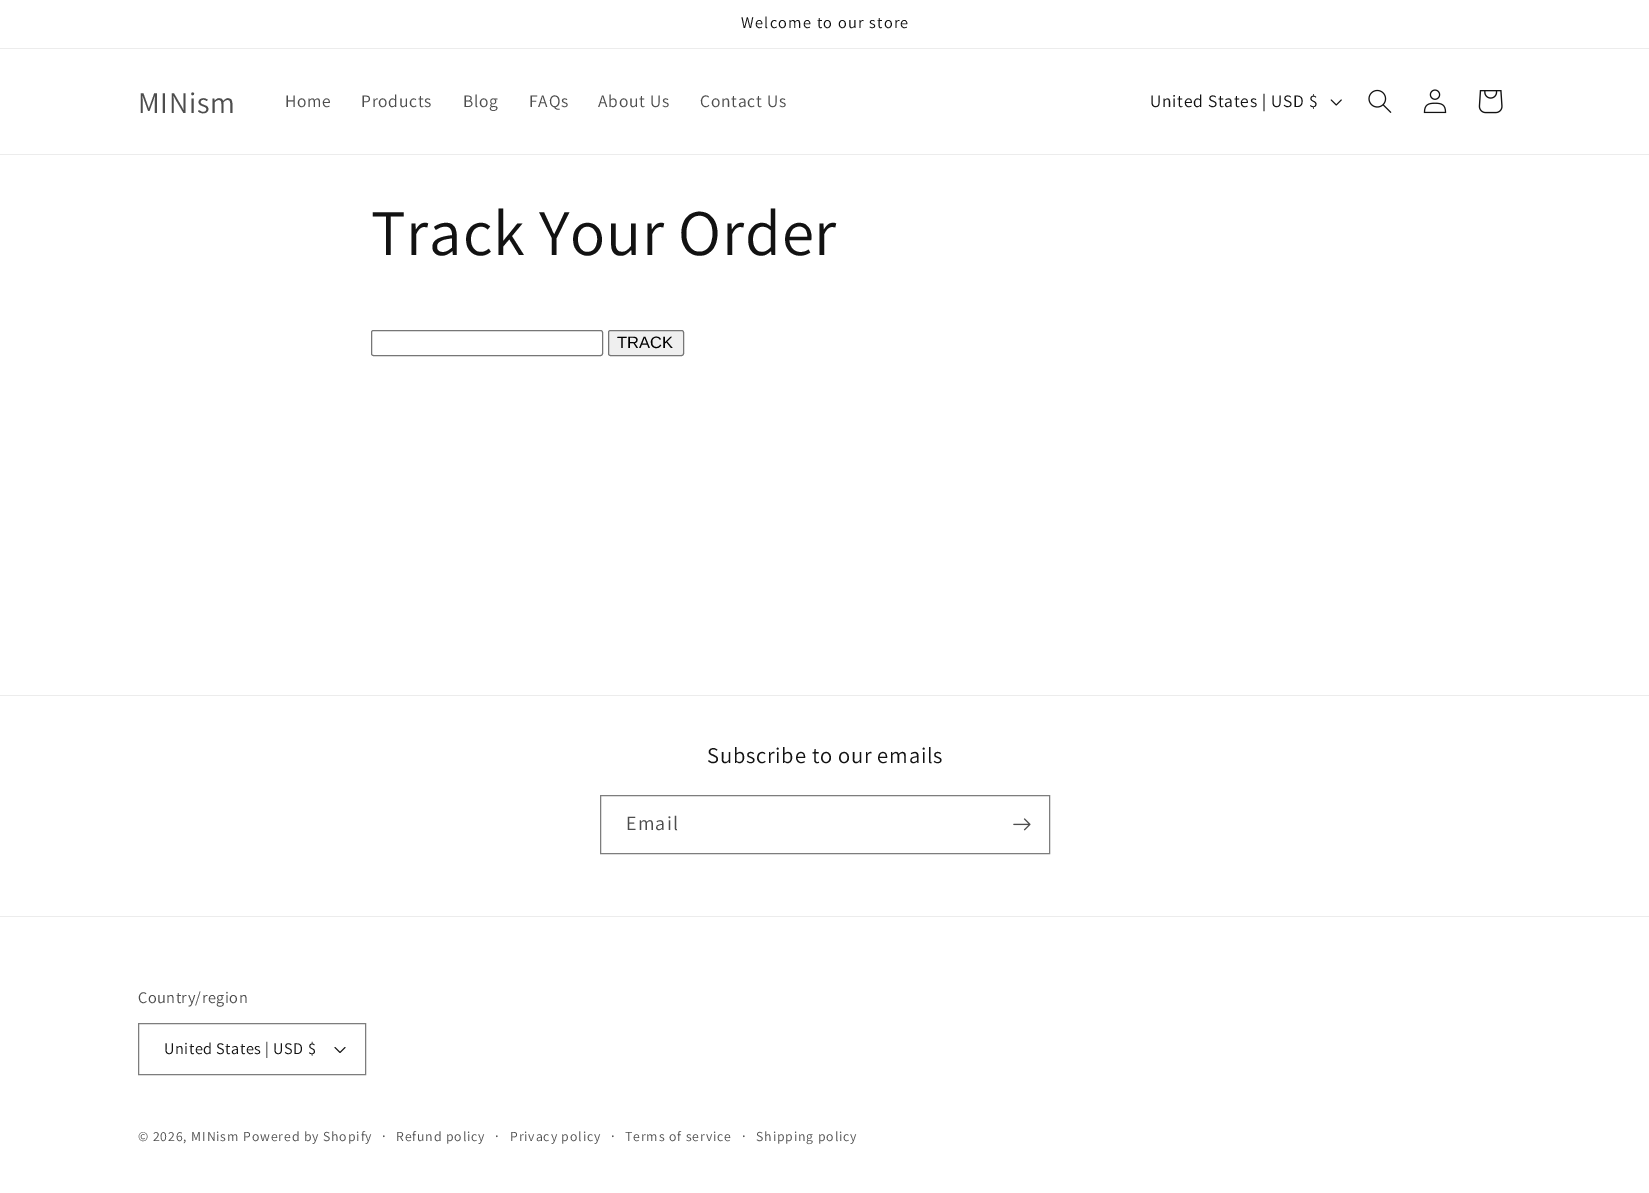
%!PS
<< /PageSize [1649 1193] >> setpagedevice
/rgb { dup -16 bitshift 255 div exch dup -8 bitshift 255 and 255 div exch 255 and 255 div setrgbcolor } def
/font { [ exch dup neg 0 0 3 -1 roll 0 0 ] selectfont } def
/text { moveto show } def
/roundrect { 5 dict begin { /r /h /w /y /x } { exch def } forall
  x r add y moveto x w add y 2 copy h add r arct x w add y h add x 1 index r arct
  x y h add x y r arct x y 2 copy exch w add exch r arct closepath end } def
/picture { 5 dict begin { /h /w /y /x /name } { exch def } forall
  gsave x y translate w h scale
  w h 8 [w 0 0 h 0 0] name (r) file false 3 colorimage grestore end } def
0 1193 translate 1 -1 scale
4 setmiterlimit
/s1 { /LiberationSans-Regular 16.5 font 16#000000 rgb } def
16#FFFFFF rgb
0 0 1649 1193 rectfill
16#ECECEC rgb
0 48 1649 1 rectfill
/Assistant-Regular 16.25 font
16#121212 rgb
741 28 moveto 1.25 0 (Welcome to our store) ashow
16#ECECEC rgb
0 154 1649 1 rectfill
/Assistant-Regular 30 font
16#4D4D4D rgb
138 113 moveto 0.75 0 (MINism) ashow
/Assistant-Regular 17.5 font
285 107 moveto 0.75 0 (Home) ashow
361 107 moveto 0.75 0 (Products) ashow
463 107 moveto 0.75 0 (Blog) ashow
529 107 moveto 0.75 0 (FAQs) ashow
598 107 moveto 0.75 0 (About Us) ashow
700 107 moveto 0.75 0 (Contact Us) ashow
16#121212 rgb
1150 107 moveto 0.75 0 (United States | USD $) ashow
(pic1.raw) 1330 99 12 7 picture
(pic2.raw) 1368 89 24 24 picture
(pic3.raw) 1423 89 24 25 picture
(pic4.raw) 1478 90 25 24 picture
/Assistant-Regular 65 font
371 255 moveto 0.75 0 (Track Your Order) ashow
16#767676 rgb
371.5 330.5 231 25 2 roundrect stroke
16#EFEFEF rgb
608.5 330.5 75 25 2 roundrect gsave fill grestore
16#767676 rgb
stroke
s1
(TRACK) 617 348 text
16#ECECEC rgb
0 695 1649 1 rectfill
/Assistant-Regular 22.5 font
16#121212 rgb
707 763 moveto 0.75 0 (Subscribe to our emails) ashow
16#7D7D7D rgb
600.5 795.5 449 58 rectstroke
/Assistant-Regular 20 font
16#4D4D4D rgb
626 830 moveto 1.25 0 (Email) ashow
(pic5.raw) 1013 818 18 13 picture
16#ECECEC rgb
0 916 1649 1 rectfill
/Assistant-Regular 16.25 font
16#4D4D4D rgb
138 1003 moveto 0.5 0 (Country/region) ashow
(pic6.raw) 334 1047 12 6 picture
16#7D7D7D rgb
138.5 1023.5 227 51 rectstroke
16#121212 rgb
164 1054 moveto 0.5 0 (United States | USD $) ashow
/Assistant-Regular 13.75 font
16#4D4D4D rgb
138 1141 moveto 0.9 0 (© 2026, MINism Powered by Shopify) ashow
/Assistant-Regular 15 font
382 1141 moveto 0.9 0 (·) ashow
/Assistant-Regular 13.75 font
396 1141 moveto 0.9 0 (Refund policy) ashow
/Assistant-Regular 15 font
495 1141 moveto 0.9 0 (·) ashow
/Assistant-Regular 13.75 font
510 1141 moveto 0.9 0 (Privacy policy) ashow
/Assistant-Regular 15 font
611 1141 moveto 0.9 0 (·) ashow
/Assistant-Regular 13.75 font
625 1141 moveto 0.9 0 (Terms of service) ashow
/Assistant-Regular 15 font
742 1141 moveto 0.9 0 (·) ashow
/Assistant-Regular 13.75 font
756 1141 moveto 0.9 0 (Shipping policy) ashow
showpage
